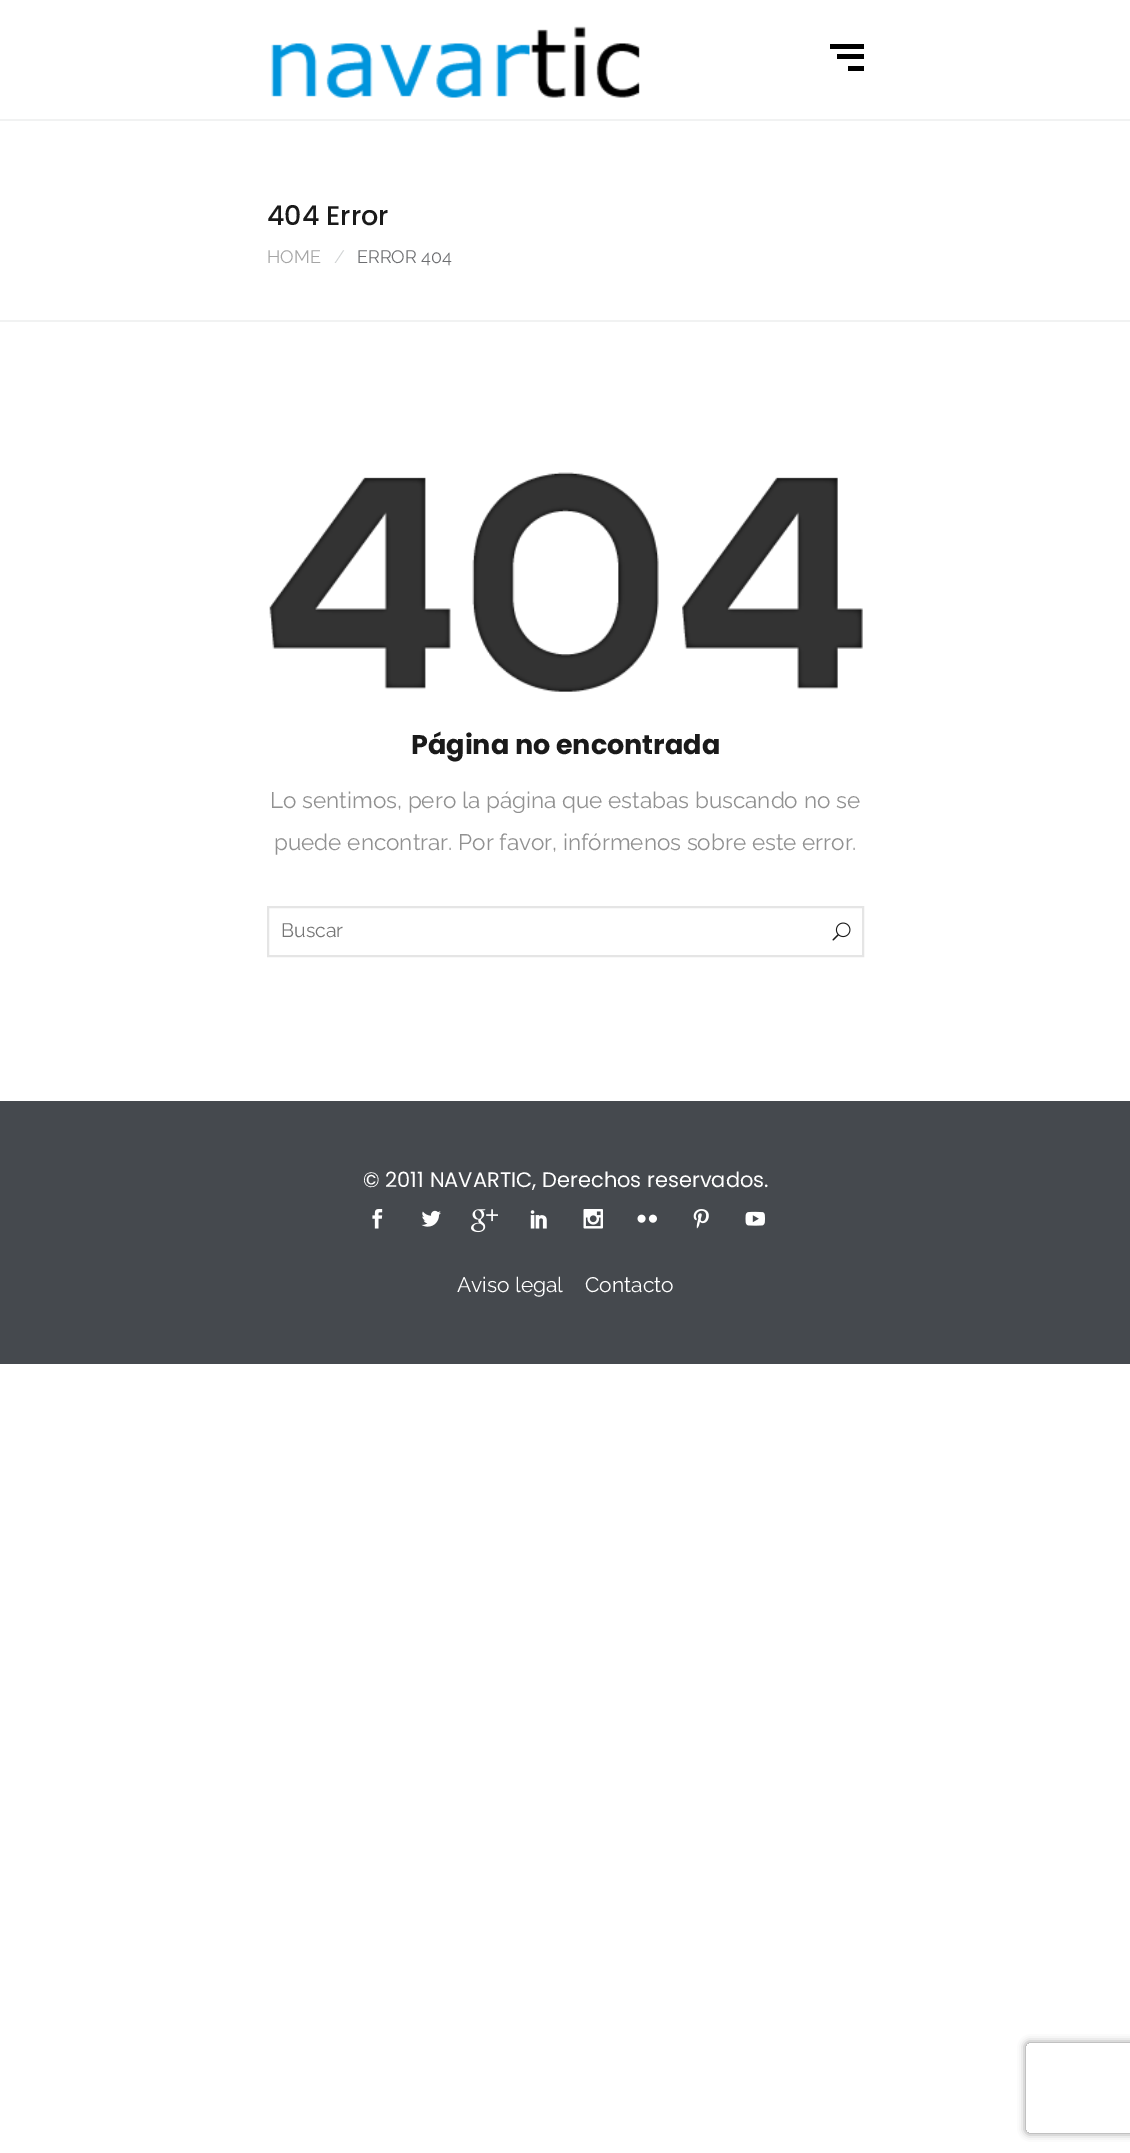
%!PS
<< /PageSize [1130 2153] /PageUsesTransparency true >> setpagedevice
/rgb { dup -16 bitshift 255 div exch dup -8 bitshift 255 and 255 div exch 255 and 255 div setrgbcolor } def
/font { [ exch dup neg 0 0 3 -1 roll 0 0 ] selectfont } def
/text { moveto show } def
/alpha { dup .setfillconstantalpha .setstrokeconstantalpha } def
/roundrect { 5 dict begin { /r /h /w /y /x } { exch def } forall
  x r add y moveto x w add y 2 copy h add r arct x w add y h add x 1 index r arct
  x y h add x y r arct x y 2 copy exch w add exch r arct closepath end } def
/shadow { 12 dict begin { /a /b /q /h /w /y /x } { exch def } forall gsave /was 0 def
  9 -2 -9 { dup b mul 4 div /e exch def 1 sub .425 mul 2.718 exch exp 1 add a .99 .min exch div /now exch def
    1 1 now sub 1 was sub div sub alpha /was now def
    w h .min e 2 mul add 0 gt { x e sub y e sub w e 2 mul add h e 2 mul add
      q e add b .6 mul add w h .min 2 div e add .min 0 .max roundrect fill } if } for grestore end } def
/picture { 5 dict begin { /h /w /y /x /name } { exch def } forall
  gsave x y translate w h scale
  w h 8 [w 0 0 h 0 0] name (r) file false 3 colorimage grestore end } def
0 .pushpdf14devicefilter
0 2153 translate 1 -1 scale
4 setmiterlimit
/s1 { /Poppins-Medium 27 font 16#1A1A1A rgb } def
/s2 { /Raleway-Regular 18 font 16#A5A5A5 rgb } def
/s3 { /Raleway-Regular 18 font 16#D1D3D4 rgb } def
/s4 { /Raleway-Regular 18 font 16#6D6E71 rgb } def
/s5 { /Poppins-Bold 27 font 16#1A1A1A rgb } def
/s6 { /Raleway-Regular 22.5 font 16#919191 rgb } def
/s7 { /Raleway-Regular 19.5 font 16#757575 rgb } def
/s8 { /Poppins-Regular 21 font 16#FFFFFF rgb } def
/s9 { /Raleway-Regular 21 font 16#FFFFFF rgb } def
16#FFFFFF rgb
0 0 1130 2153 rectfill
16#F1F2F2 rgb
0 119 1130 2 rectfill
(pic1.raw) 271 26 369 72 picture
16#000000 rgb
837 54 27 5 rectfill
830 44 34 5 rectfill
848 66 16 5 rectfill
16#F1F2F2 rgb
0 320 1130 2 rectfill
s1
(404 Error) 267 225 text
s2
(HOME) 267 263 text
s3
(/) 334 263 text
s4
(ERROR 404) 357 263 text
(pic2.raw) 269 472 594 220 picture
s5
(Página no encontrada) 411 754 text
s6
(Lo sentimos, pero la página que estabas buscando no se) 270 808 text
(puede encontrar. Por favor, infórmenos sobre este error.) 274 850 text
16#E5E5E5 rgb
2 setlinewidth
268 907 595 49 rectstroke
s7
(Buscar) 281 937 text
(pic3.raw) 832 922 19 19 picture
16#45494E rgb
0 1101 1130 263 rectfill
s8
(© 2011 NAVARTIC, Derechos reservados.) 363 1187 text
(pic4.raw) 372 1209 11 20 picture
(pic5.raw) 421 1210 20 17 picture
(pic6.raw) 471 1209 27 24 picture
(pic7.raw) 530 1210 17 19 picture
(pic8.raw) 583 1209 20 20 picture
(pic9.raw) 637 1214 20 9 picture
(pic10.raw) 693 1209 16 20 picture
(pic11.raw) 745 1211 20 15 picture
s9
(Aviso legal) 457 1292 text
(Contacto) 585 1292 text
gsave
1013 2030 moveto 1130 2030 lineto 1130 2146 lineto 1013 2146 lineto closepath 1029 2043 moveto 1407 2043 lineto 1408.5 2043 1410 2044.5 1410 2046 curveto 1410 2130 lineto 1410 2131.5 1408.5 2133 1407 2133 curveto 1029 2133 lineto 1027.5 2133 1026 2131.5 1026 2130 curveto 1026 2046 lineto 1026 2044.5 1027.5 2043 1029 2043 curveto closepath eoclip newpath
16#808080 rgb
1026 2043 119 90 3 4 1 shadow
grestore
.poppdf14devicefilter showpage
